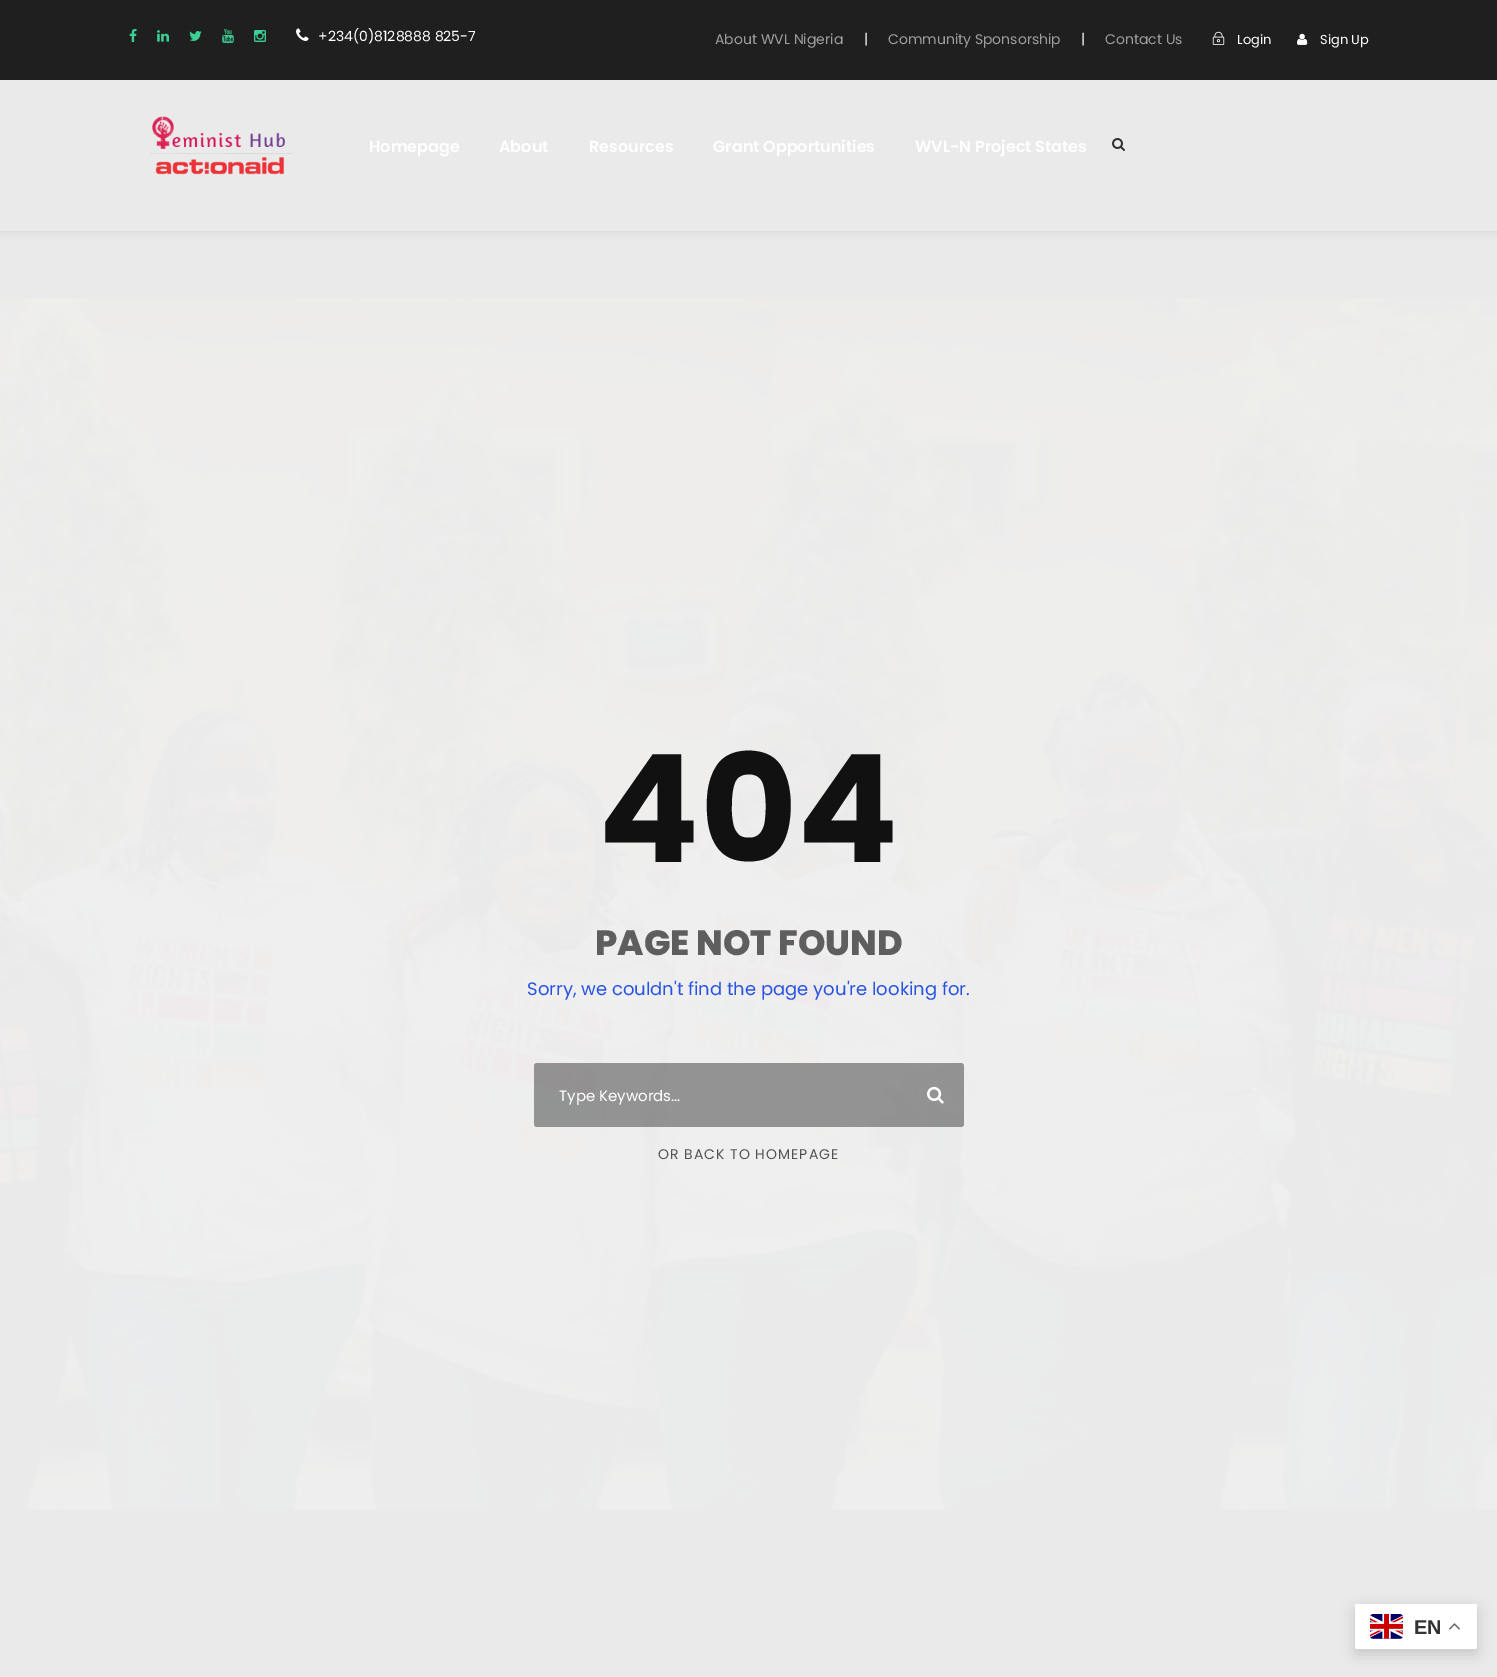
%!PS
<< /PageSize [1497 1677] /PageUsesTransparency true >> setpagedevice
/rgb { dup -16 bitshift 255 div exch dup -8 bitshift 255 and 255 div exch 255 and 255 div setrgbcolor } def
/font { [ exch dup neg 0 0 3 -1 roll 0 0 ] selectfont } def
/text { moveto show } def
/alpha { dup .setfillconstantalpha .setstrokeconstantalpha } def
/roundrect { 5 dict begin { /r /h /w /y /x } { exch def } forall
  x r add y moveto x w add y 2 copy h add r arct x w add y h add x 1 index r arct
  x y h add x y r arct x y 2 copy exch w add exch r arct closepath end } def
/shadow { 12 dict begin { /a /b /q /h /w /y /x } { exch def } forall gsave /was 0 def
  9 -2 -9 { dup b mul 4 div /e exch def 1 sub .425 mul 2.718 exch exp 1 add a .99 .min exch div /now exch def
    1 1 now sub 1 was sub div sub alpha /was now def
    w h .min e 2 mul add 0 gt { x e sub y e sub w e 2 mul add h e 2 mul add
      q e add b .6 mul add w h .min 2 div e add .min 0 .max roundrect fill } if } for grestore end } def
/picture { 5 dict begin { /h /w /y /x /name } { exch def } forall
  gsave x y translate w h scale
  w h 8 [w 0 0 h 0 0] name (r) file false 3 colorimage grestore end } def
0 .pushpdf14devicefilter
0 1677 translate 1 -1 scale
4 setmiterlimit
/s1 { /Poppins-Regular 14 font 16#FFFFFF rgb } def
/s2 { /Poppins-Regular 14 font 16#9F9F9F rgb } def
/s3 { /Poppins-Regular 13 font 16#FFFFFF rgb } def
/s4 { /Poppins-SemiBold 16 font 16#FFFFFF rgb } def
/s5 { /Poppins-Bold 150 font 16#111111 rgb } def
/s6 { /Poppins-ExtraBold 35 font 16#5E5E5E rgb } def
/s7 { /Poppins-Regular 18 font 16#2653E3 rgb } def
/s8 { /Poppins-Regular 15 font 16#FFFFFF rgb } def
/s9 { /LiberationSans-Bold 20 font 16#333333 rgb } def
16#F9F9F9 rgb
0 0 1497 1677 rectfill
16#1F1F1F rgb
0 0 1497 80 rectfill
(pic1.raw) 129 29 8 13 picture
(pic2.raw) 157 30 12 12 picture
(pic3.raw) 189 31 13 10 picture
(pic4.raw) 222 29 12 14 picture
(pic5.raw) 254 30 12 12 picture
(pic6.raw) 296 28 13 13 picture
s1
(+234\(0\)8128888 825-7) 318 41 text
s2
(About WVL Nigeria) 715 44 text
s1
(|) 864 44 text
s2
(Community Sponsorship) 888 44 text
s1
(|) 1081 44 text
s2
(Contact Us) 1105 44 text
(pic7.raw) 1212 31 13 14 picture
s3
(Login) 1237 44 text
(pic8.raw) 1297 33 11 12 picture
(Sign Up) 1320 44 text
(pic11.raw) 0 80 1497 1597 picture
gsave
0 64 moveto 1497 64 lineto 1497 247 lineto 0 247 lineto closepath 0 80 moveto 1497 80 lineto 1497 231 lineto 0 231 lineto closepath eoclip newpath
16#000000 rgb
0 80 1497 151 0 5 0.1 shadow
grestore
(pic9.raw) 150 116 142 59 picture
s4
(Homepage) 369 152 text
(About) 499 152 text
(Resources) 589 152 text
(Grant Opportunities) 713 152 text
(WVL-N Project States) 915 152 text
(pic10.raw) 1112 138 13 13 picture
s5
(404) 598 862 text
s6
(PAGE NOT FOUND) 595 955 text
s7
(Sorry, we couldn't find the page you're looking for.) 527 995 text
0.4 alpha
16#0A0A0A rgb
534 1063 430 64 3 roundrect fill
1 alpha
s8
(Type Keywords...) 559 1101 text
(pic12.raw) 927 1086 17 18 picture
/Poppins-Regular 14 font
16#515151 rgb
658 1159 moveto 1 0 (OR BACK TO HOMEPAGE) ashow
16#000000 rgb
1355 1609 122 45 2 7.5 0.15 shadow
16#FFFFFF rgb
1355 1604 122 45 2 roundrect fill
(pic13.raw) 1370 1614 33 25 picture
s9
(EN) 1414 1634 text
(pic14.raw) 1449 1623 11 7 picture
.poppdf14devicefilter showpage
